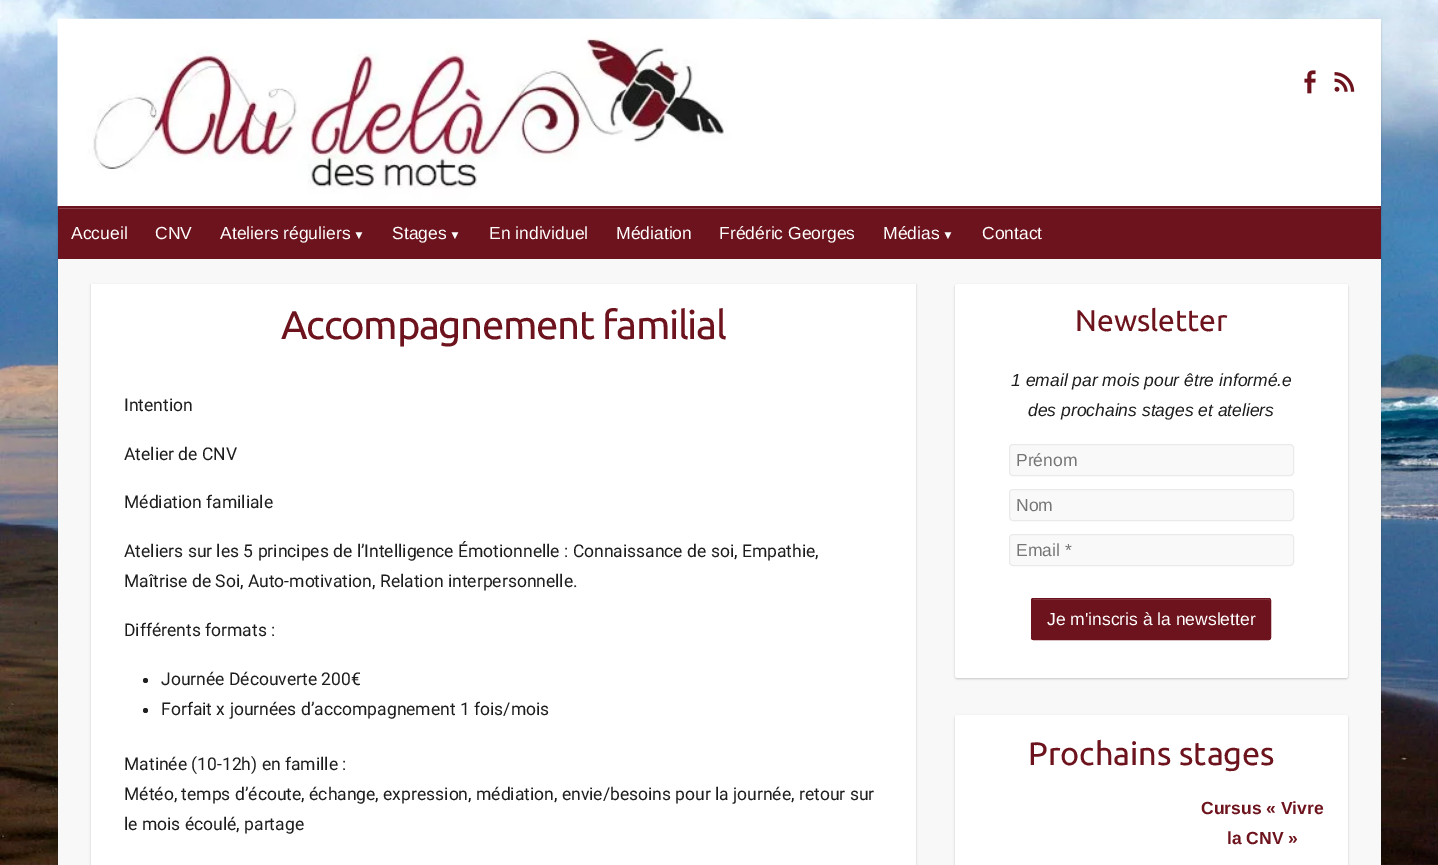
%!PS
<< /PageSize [1438 865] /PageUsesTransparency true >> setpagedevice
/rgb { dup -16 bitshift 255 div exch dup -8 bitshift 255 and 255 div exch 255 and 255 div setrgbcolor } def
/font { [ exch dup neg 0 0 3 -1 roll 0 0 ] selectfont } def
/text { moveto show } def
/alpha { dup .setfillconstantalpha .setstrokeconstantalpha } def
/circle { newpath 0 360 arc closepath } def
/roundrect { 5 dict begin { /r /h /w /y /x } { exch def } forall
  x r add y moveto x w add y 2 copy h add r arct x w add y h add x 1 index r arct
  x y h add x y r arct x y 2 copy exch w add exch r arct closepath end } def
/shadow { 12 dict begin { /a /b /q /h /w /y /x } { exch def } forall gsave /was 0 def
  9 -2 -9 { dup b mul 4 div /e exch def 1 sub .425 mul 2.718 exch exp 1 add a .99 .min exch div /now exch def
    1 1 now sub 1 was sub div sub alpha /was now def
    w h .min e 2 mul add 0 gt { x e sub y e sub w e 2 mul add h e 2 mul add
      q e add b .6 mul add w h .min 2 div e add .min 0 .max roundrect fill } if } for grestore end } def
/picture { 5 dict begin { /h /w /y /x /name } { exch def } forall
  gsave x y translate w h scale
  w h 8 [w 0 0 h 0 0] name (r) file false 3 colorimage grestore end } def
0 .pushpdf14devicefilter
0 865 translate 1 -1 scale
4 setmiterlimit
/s1 { /LiberationSans-Regular 17.5 font 16#FFFFFF rgb } def
/s2 { /LiberationSans-Regular 12 font 16#FFFFFF rgb } def
/s3 { /Roboto-Regular 17.5 font 16#1D1D1D rgb } def
/s4 { /Ubuntu-Regular 30 font 16#6D131D rgb } def
/s5 { /LiberationSans-Italic 17.5 font 16#1D1D1D rgb } def
/s6 { /LiberationSans-Regular 17.5 font 16#757575 rgb } def
/s7 { /Ubuntu-Regular 32.5 font 16#6D131D rgb } def
/s8 { /LiberationSans-Bold 17.5 font 16#6D131D rgb } def
16#FFFFFF rgb
0 0 1438 865 rectfill
(pic1.raw) 0 0 1438 865 picture
16#000000 rgb
58 20 1323 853 5 1 0.2 shadow
16#F8F8F8 rgb
58 259 1323 606 rectfill
16#FFFFFF rgb
760 19 621 187 rectfill
(pic2.raw) 57 18 703 189 picture
(pic3.raw) 1304 70 12 24 picture
(pic4.raw) 1334 72 21 20 picture
16#6D131D rgb
58 206 1323 53 rectfill
16#8A424A rgb
59 208 1321 1 rectfill
s1
(Accueil) 71 239 text
(CNV) 155 239 text
(Ateliers réguliers) 220 239 text
s2
(▼) 353 239 text
s1
(Stages) 392 239 text
s2
(▼) 449 239 text
s1
(En individuel) 489 239 text
(Médiation) 616 239 text
(Frédéric Georges) 719 239 text
(Médias) 883 239 text
s2
(▼) 942 239 text
s1
(Contact) 982 239 text
16#000000 rgb
91 285 825 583 0 1 0.2 shadow
16#FFFFFF rgb
91 284 825 581 rectfill
/Ubuntu-Regular 40 font
16#6D131D rgb
281 339 moveto -1.25 0 (Accompagnement familial) ashow
s3
(Intention) 124 411 text
(Atelier de CNV) 124 460 text
(Médiation familiale) 124 508 text
(Ateliers sur les 5 principes de l’Intelligence Émotionnelle : Connaissance de soi, Empathie,) 124 557 text
(Maîtrise de Soi, Auto-motivation, Relation interpersonnelle.) 124 587 text
(Différents formats :) 124 636 text
16#202020 rgb
145.5 680.5 2.5 circle fill
s3
(Journée Découverte 200€) 161 685 text
16#202020 rgb
145.5 710.5 2.5 circle fill
s3
(Forfait x journées d’accompagnement 1 fois/mois) 161 715 text
(Matinée \(10-12h\) en famille :) 124 770 text
(Météo, temps d’écoute, échange, expression, médiation, envie/besoins pour la journée, retour sur) 124 800 text
(le mois écoulé, partage) 124 830 text
16#000000 rgb
955 285 393 394 2.5 1 0.2 shadow
16#FFFFFF rgb
955 284 393 394 2.5 roundrect fill
s4
(Newsletter) 1075 331 text
s5
(1 email par mois pour être informé.e) 1011 386 text
(des prochains stages et ateliers) 1028 416 text
16#F9F9F9 rgb
1009.5 444.5 284 31 3.5 roundrect gsave fill grestore
16#EAEAEA rgb
stroke
s6
(Prénom) 1016 466 text
16#F9F9F9 rgb
1009.5 489.5 284 31 3.5 roundrect gsave fill grestore
16#EAEAEA rgb
stroke
s6
(Nom) 1016 511 text
16#F9F9F9 rgb
1009.5 534.5 284 31 3.5 roundrect gsave fill grestore
16#EAEAEA rgb
stroke
s6
(Email *) 1016 556 text
16#6D131D rgb
1031 598 240 42 2.5 roundrect fill
16#8A424A rgb
1034 600 moveto 1269 600 lineto 1270 601 lineto 1270 599 lineto 1034 599 lineto 1033 599 1033 600 1033 600 curveto closepath fill
16#6D131D rgb
1031.5 598.5 239 41 2 roundrect stroke
s1
(Je m'inscris à la newsletter) 1047 625 text
16#000000 rgb
955 716 393 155 2.5 1 0.2 shadow
16#FFFFFF rgb
955 715 393 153 2.5 roundrect fill
s7
(Prochains stages) 1028 765 text
s8
(Cursus « Vivre) 1201 814 text
(la CNV ») 1227 844 text
.poppdf14devicefilter showpage
